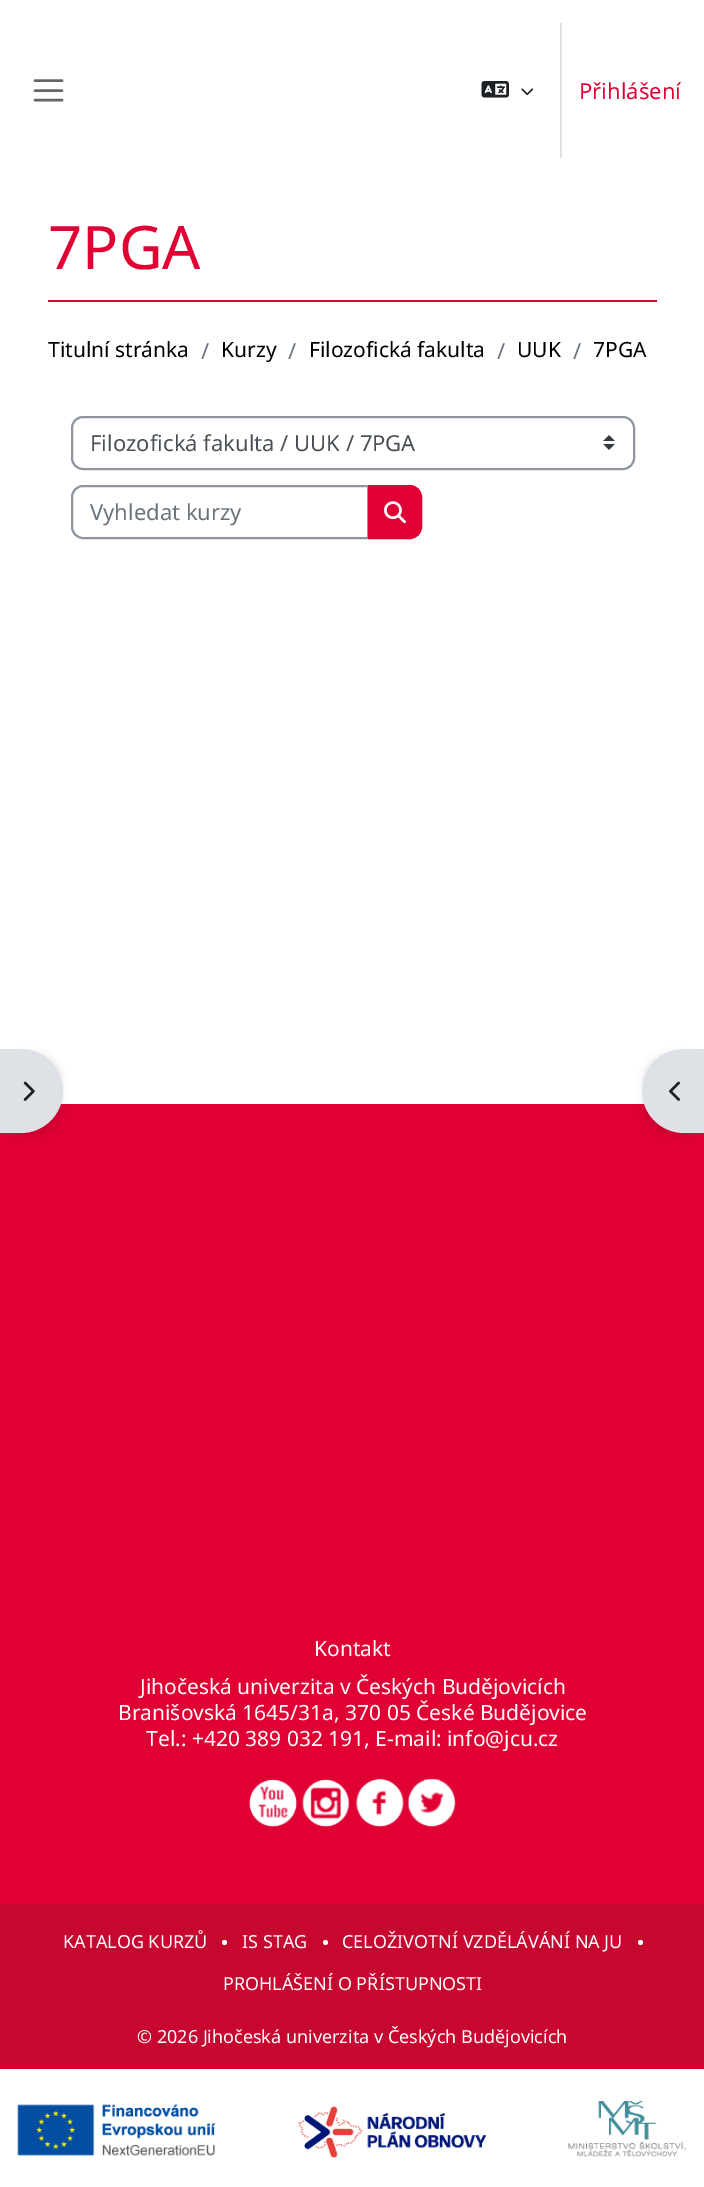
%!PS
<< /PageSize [704 2187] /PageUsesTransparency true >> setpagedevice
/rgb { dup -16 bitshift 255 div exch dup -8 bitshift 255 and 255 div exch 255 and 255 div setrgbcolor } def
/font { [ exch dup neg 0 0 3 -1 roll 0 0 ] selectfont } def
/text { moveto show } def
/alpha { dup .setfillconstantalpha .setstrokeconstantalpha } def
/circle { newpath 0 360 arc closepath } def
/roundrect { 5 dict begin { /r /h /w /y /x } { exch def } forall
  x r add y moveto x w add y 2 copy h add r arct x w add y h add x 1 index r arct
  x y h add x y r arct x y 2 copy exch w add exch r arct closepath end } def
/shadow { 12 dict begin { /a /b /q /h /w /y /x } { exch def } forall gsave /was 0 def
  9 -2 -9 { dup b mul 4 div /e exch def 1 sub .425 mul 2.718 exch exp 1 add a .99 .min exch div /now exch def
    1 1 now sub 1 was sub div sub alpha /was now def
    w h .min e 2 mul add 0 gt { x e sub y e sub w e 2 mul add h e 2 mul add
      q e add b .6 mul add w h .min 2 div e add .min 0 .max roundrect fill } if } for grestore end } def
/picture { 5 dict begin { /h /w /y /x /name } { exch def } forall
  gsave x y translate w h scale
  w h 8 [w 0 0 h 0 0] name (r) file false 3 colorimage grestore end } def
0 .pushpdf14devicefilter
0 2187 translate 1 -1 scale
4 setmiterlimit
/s1 { /NotoSans-Regular 22 font 16#E00034 rgb } def
/s2 { /NotoSans-Regular 60 font 16#E00034 rgb } def
/s3 { /NotoSans-Regular 21 font 16#000000 rgb } def
/s4 { /NotoSans-Regular 22 font 16#6A737B rgb } def
/s5 { /NotoSans-Regular 22 font 16#495057 rgb } def
/s6 { /NotoSans-Regular 21 font 16#FFFFFF rgb } def
/s7 { /NotoSans-Regular 18 font 16#FFFFFF rgb } def
16#FFFFFF rgb
0 0 704 2187 rectfill
16#666666 rgb
2.5 setlinewidth
1 setlinecap
35 80.5 moveto 62 80.5 lineto 35 90.5 moveto 62 90.5 lineto 35 100 moveto 62 100 lineto stroke
(pic1.raw) 481 81 28 17 picture
(pic2.raw) 521 88 13 8 picture
16#DEE2E6 rgb
560 23 2 135 rectfill
s1
(Přihlášení) 579 99 text
48 300 609 2 rectfill
s2
(7PGA) 48 269 text
s3
(Titulní stránka) 48 357 text
s4
(/) 201 359 text
s3
(Kurzy) 221 357 text
s4
(/) 288 359 text
s3
(Filozofická fakulta) 309 357 text
s4
(/) 497 359 text
s3
(UUK) 517 357 text
s4
(/) 573 359 text
s3
(7PGA) 593 357 text
(pic3.raw) 603 435 12 15 picture
16#8F959E rgb
2 setlinewidth
0 setlinecap
72 417 562 52 11 roundrect stroke
s5
(Filozofická fakulta / UUK / 7PGA) 90 451 text
16#8F959E rgb
83 486 moveto 368 486 lineto 368 538 lineto 83 538 lineto 77 538 72 533 72 527 curveto 72 497 lineto 72 491 77 486 83 486 curveto closepath stroke
s4
(Vyhledat kurzy) 90 520 text
16#E00034 rgb
369 486 moveto 410 486 lineto 416 486 421 491 421 497 curveto 421 527 lineto 421 533 416 538 410 538 curveto 369 538 lineto closepath gsave fill grestore
stroke
(pic4.raw) 384 501 22 23 picture
0 1104 704 800 rectfill
16#000000 rgb
0 1052 63 84 42 3 0.07 shadow
16#DEE2E6 rgb
0 1049 moveto 21 1049 lineto 44 1049 63 1068 63 1091 curveto 63 1114 44 1133 21 1133 curveto 0 1133 lineto closepath fill
(pic5.raw) 23 1081 12 20 picture
16#000000 rgb
642 1052 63 84 42 3 0.07 shadow
16#DEE2E6 rgb
684 1049 moveto 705 1049 lineto 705 1133 lineto 684 1133 lineto 661 1133 642 1114 642 1091 curveto 642 1068 661 1049 684 1049 curveto closepath fill
(pic6.raw) 669 1081 11 20 picture
s6
(Kontakt) 314 1656 text
(Jihočeská univerzita v Českých Budějovicích) 140 1694 text
(Branišovská 1645/31a, 370 05 České Budějovice) 118 1720 text
(Tel.: +420 389 032 191, E-mail: info@jcu.cz) 146 1746 text
(pic7.raw) 249 1779 48 48 picture
(pic8.raw) 302 1779 48 48 picture
(pic9.raw) 356 1779 48 48 picture
(pic10.raw) 408 1779 48 48 picture
16#C70730 rgb
0 1904 704 165 rectfill
s7
(KATALOG KURZŮ) 63 1948 text
224.5 1942.5 2.5 circle fill
(IS STAG) 242 1948 text
325.5 1942.5 2.5 circle fill
(CELOŽIVOTNÍ VZDĚLÁVÁNÍ NA JU) 342 1948 text
640.5 1942.5 2.5 circle fill
(PROHLÁŠENÍ O PŘÍSTUPNOSTI) 223 1990 text
(© 2026 Jihočeská univerzita v Českých Budějovicích) 137 2043 text
(pic11.raw) 17 2101 669 57 picture
.poppdf14devicefilter showpage
